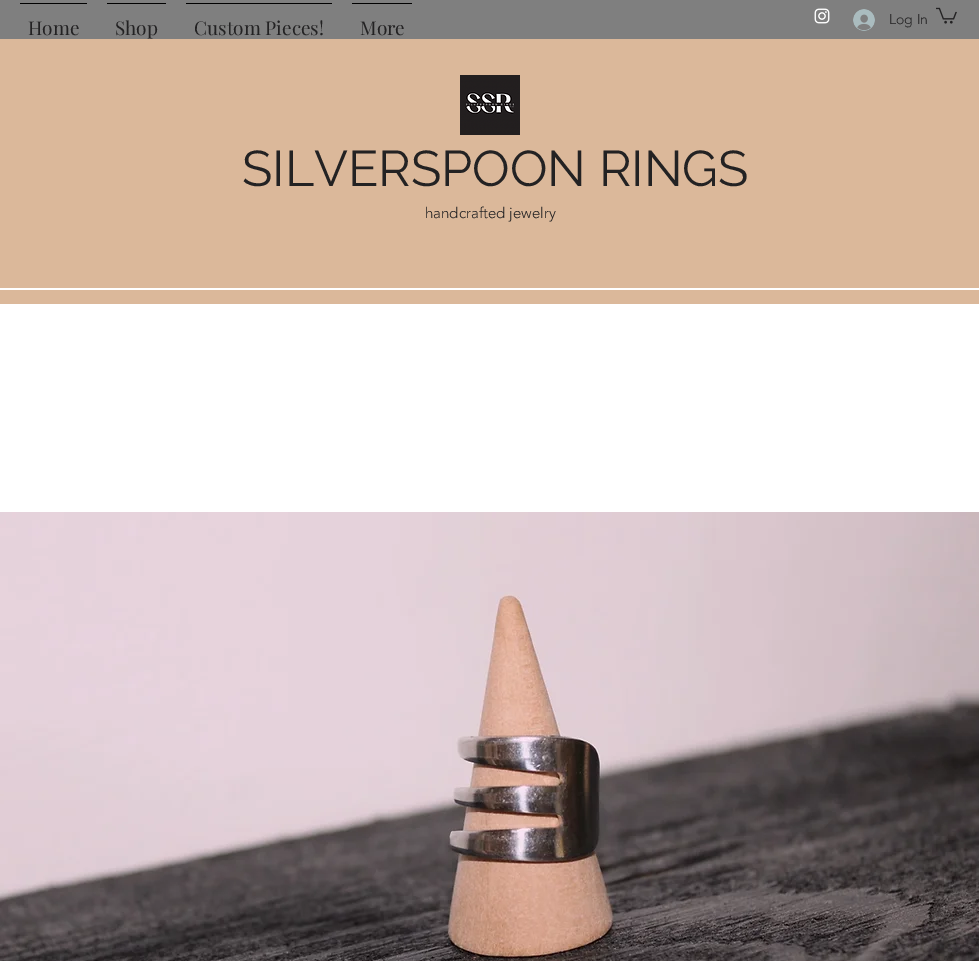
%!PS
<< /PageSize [979 961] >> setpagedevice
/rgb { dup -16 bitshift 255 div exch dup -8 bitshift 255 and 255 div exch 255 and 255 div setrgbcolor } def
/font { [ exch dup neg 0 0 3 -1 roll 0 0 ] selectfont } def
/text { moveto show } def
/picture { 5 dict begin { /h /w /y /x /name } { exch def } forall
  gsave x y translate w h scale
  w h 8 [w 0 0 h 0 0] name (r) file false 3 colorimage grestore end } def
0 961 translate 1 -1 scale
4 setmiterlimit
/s1 { /PlayfairDisplay-Regular 19 font 16#232223 rgb } def
/s2 { /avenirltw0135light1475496-Light 14 font 16#232223 rgb } def
/s3 { /Raleway-Regular 50 font 16#232223 rgb } def
/s4 { /avenirltw0135light1475496-Light 15 font 16#232223 rgb } def
16#FFFFFF rgb
0 0 979 961 rectfill
16#7F7F7F rgb
0 0 979 39 rectfill
16#000000 rgb
20 3 67 1 rectfill
s1
(Home) 28 35 text
16#000000 rgb
107 3 59 1 rectfill
s1
(Shop) 115 35 text
16#000000 rgb
186 3 146 1 rectfill
s1
(Custom Pieces!) 194 35 text
16#000000 rgb
352 3 60 1 rectfill
s1
(More) 360 35 text
(pic1.raw) 814 8 16 16 picture
(pic2.raw) 853 9 22 22 picture
s2
(Log In) 889 24 text
(pic3.raw) 936 7 21 17 picture
16#DBB89A rgb
0 39 979 265 rectfill
(pic4.raw) 460 75 60 60 picture
s3
(SILVERSPOON RINGS) 242 186 text
s4
(handcrafted jewelry) 425 218 text
16#FFFFFF rgb
0 288 979 2 rectfill
(pic5.raw) 0 512 979 449 picture
showpage
